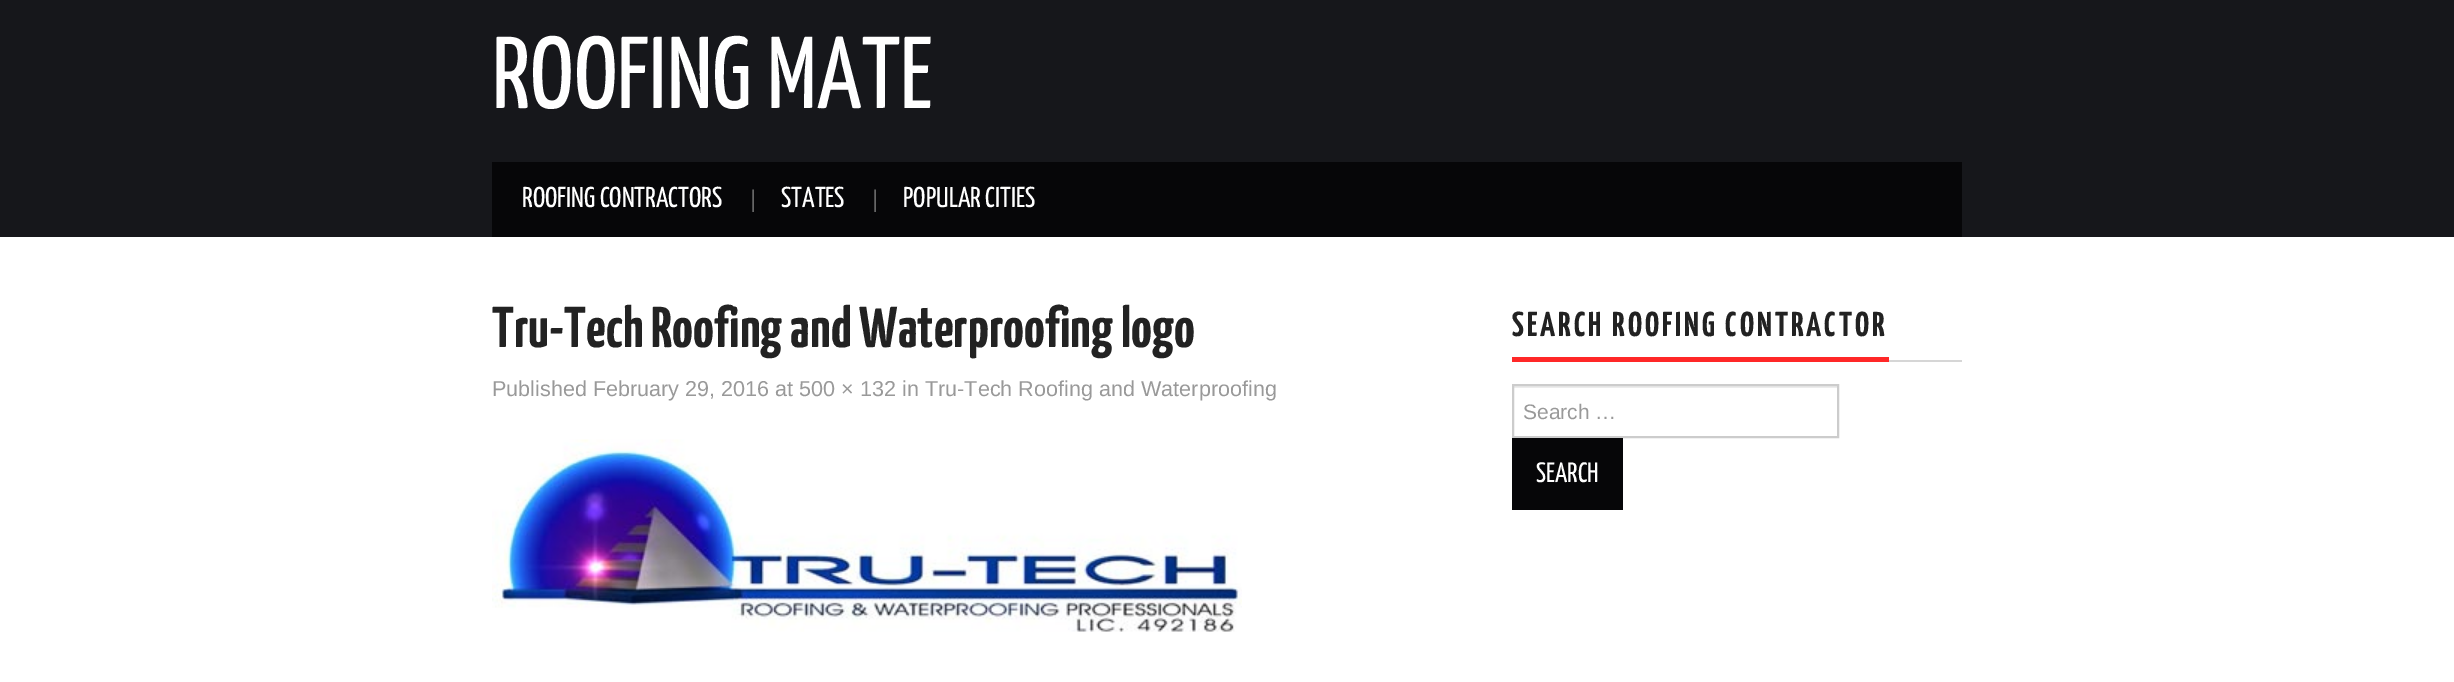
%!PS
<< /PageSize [2454 682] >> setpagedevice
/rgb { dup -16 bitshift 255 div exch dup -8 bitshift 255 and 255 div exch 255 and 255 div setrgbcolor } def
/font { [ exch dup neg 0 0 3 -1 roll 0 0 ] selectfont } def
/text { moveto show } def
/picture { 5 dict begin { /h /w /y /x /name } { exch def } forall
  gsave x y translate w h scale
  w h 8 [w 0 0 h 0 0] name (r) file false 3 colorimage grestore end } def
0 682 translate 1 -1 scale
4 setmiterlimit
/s1 { /YanoneKaffeesatz-Regular 102 font 16#FFFFFF rgb } def
/s2 { /YanoneKaffeesatz-Regular 28.75 font 16#FFFFFF rgb } def
/s3 { /LiberationSans-Regular 24 font 16#666666 rgb } def
/s4 { /YanoneKaffeesatz-Bold 57.6 font 16#222222 rgb } def
/s5 { /LiberationSans-Regular 21.6 font 16#999999 rgb } def
/s6 { /LiberationSans-Regular 21 font 16#999999 rgb } def
/s7 { /YanoneKaffeesatz-Regular 28 font 16#FFFFFF rgb } def
16#FFFFFF rgb
0 0 2454 682 rectfill
16#16171B rgb
0 0 2454 237 rectfill
s1
(ROOFING MATE) 492 108 text
16#060608 rgb
492 162 1470 75 rectfill
s2
(ROOFING CONTRACTORS) 522 207 text
s3
(|) 750 207 text
s2
(STATES) 781 207 text
s3
(|) 872 207 text
s2
(POPULAR CITIES) 903 207 text
s4
(Tru-Tech Roofing and Waterproofing logo) 492 347 text
s5
(Published February 29, 2016 at 500 × 132 in Tru-Tech Roofing and Waterproofing) 492 396 text
(pic1.raw) 492 439 750 193 picture
16#D6D6D6 rgb
1889 360 73 2 rectfill
16#FF2828 rgb
1512 357 377 5 rectfill
/YanoneKaffeesatz-Bold 34.5 font
16#222222 rgb
1512 336 moveto 3 0 (SEARCH ROOFING CONTRACTOR) ashow
16#ECECEC rgb
1514 386 324 2 rectfill
16#CCCCCC rgb
2 setlinewidth
1513 385 325 52 rectstroke
s6
(Search …) 1523 419 text
16#060608 rgb
1512 438 111 72 rectfill
s7
(SEARCH) 1536 482 text
showpage
